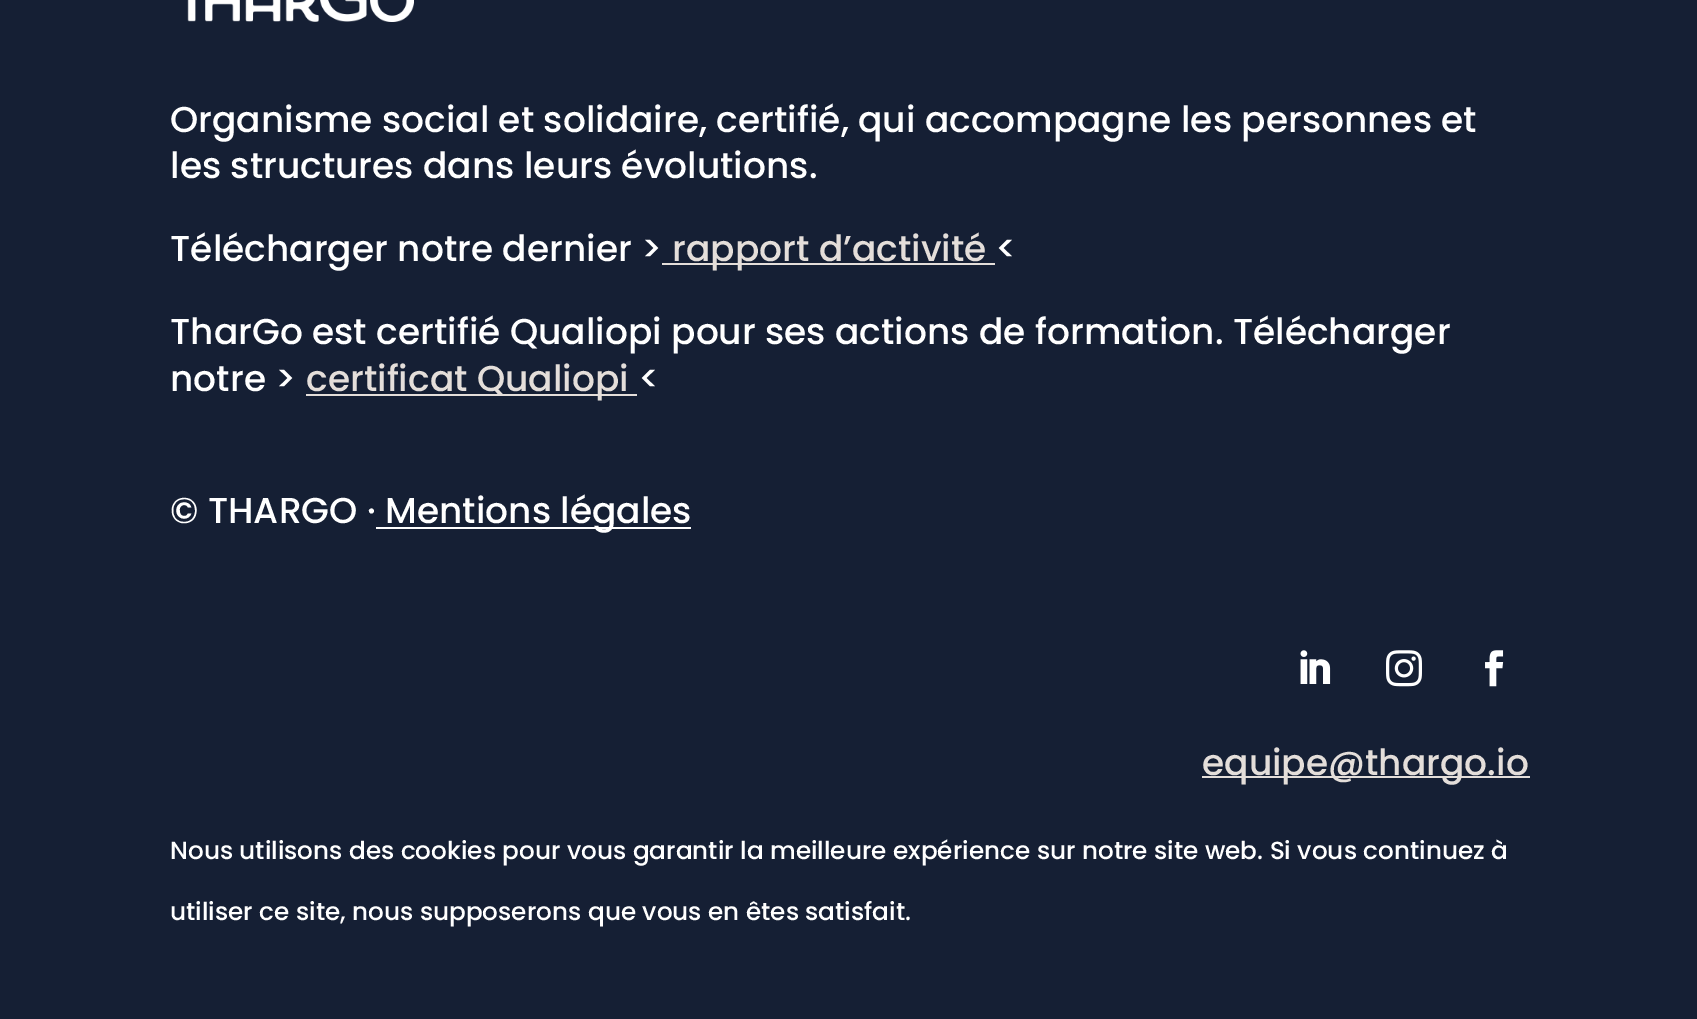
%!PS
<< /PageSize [1697 1019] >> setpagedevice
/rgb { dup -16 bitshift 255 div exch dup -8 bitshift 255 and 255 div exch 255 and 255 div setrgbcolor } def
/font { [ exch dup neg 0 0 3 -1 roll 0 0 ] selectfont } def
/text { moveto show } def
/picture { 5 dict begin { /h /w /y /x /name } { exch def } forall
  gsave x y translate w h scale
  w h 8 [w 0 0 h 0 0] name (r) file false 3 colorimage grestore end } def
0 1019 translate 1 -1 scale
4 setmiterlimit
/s1 { /Poppins-Medium 36 font 16#FFFFFF rgb } def
/s2 { /Poppins-Medium 36 font 16#E4DEDA rgb } def
/s3 { /Poppins-Medium 24.75 font 16#FFFFFF rgb } def
16#151F34 rgb
0 0 1697 1019 rectfill
(pic1.raw) 187 0 227 22 picture
s1
(Organisme social et solidaire, certifié, qui accompagne les personnes et) 170 132 text
(les structures dans leurs évolutions.) 170 178 text
(Télécharger notre dernier >) 170 261 text
16#E4DEDA rgb
662 263 333 2 rectfill
(rapport d’activité) 672 261 text
s1
(<) 995 261 text
(TharGo est certifié Qualiopi pour ses actions de formation. Télécharger) 170 344 text
(notre >) 170 391 text
16#E4DEDA rgb
306 394 331 2 rectfill
(certificat Qualiopi) 306 391 text
s1
(<) 638 391 text
(© THARGO ·) 170 523 text
376 527 315 2 rectfill
(Mentions légales) 385 523 text
(pic2.raw) 1300 650 31 34 picture
(pic3.raw) 1386 650 36 37 picture
(pic4.raw) 1485 650 19 37 picture
16#E4DEDA rgb
1202 776 328 2 rectfill
(equipe@thargo.io) 1202 775 text
s3
(Nous utilisons des cookies pour vous garantir la meilleure expérience sur notre site web. Si vous continuez à) 170 859 text
(utiliser ce site, nous supposerons que vous en êtes satisfait.) 170 920 text
showpage
